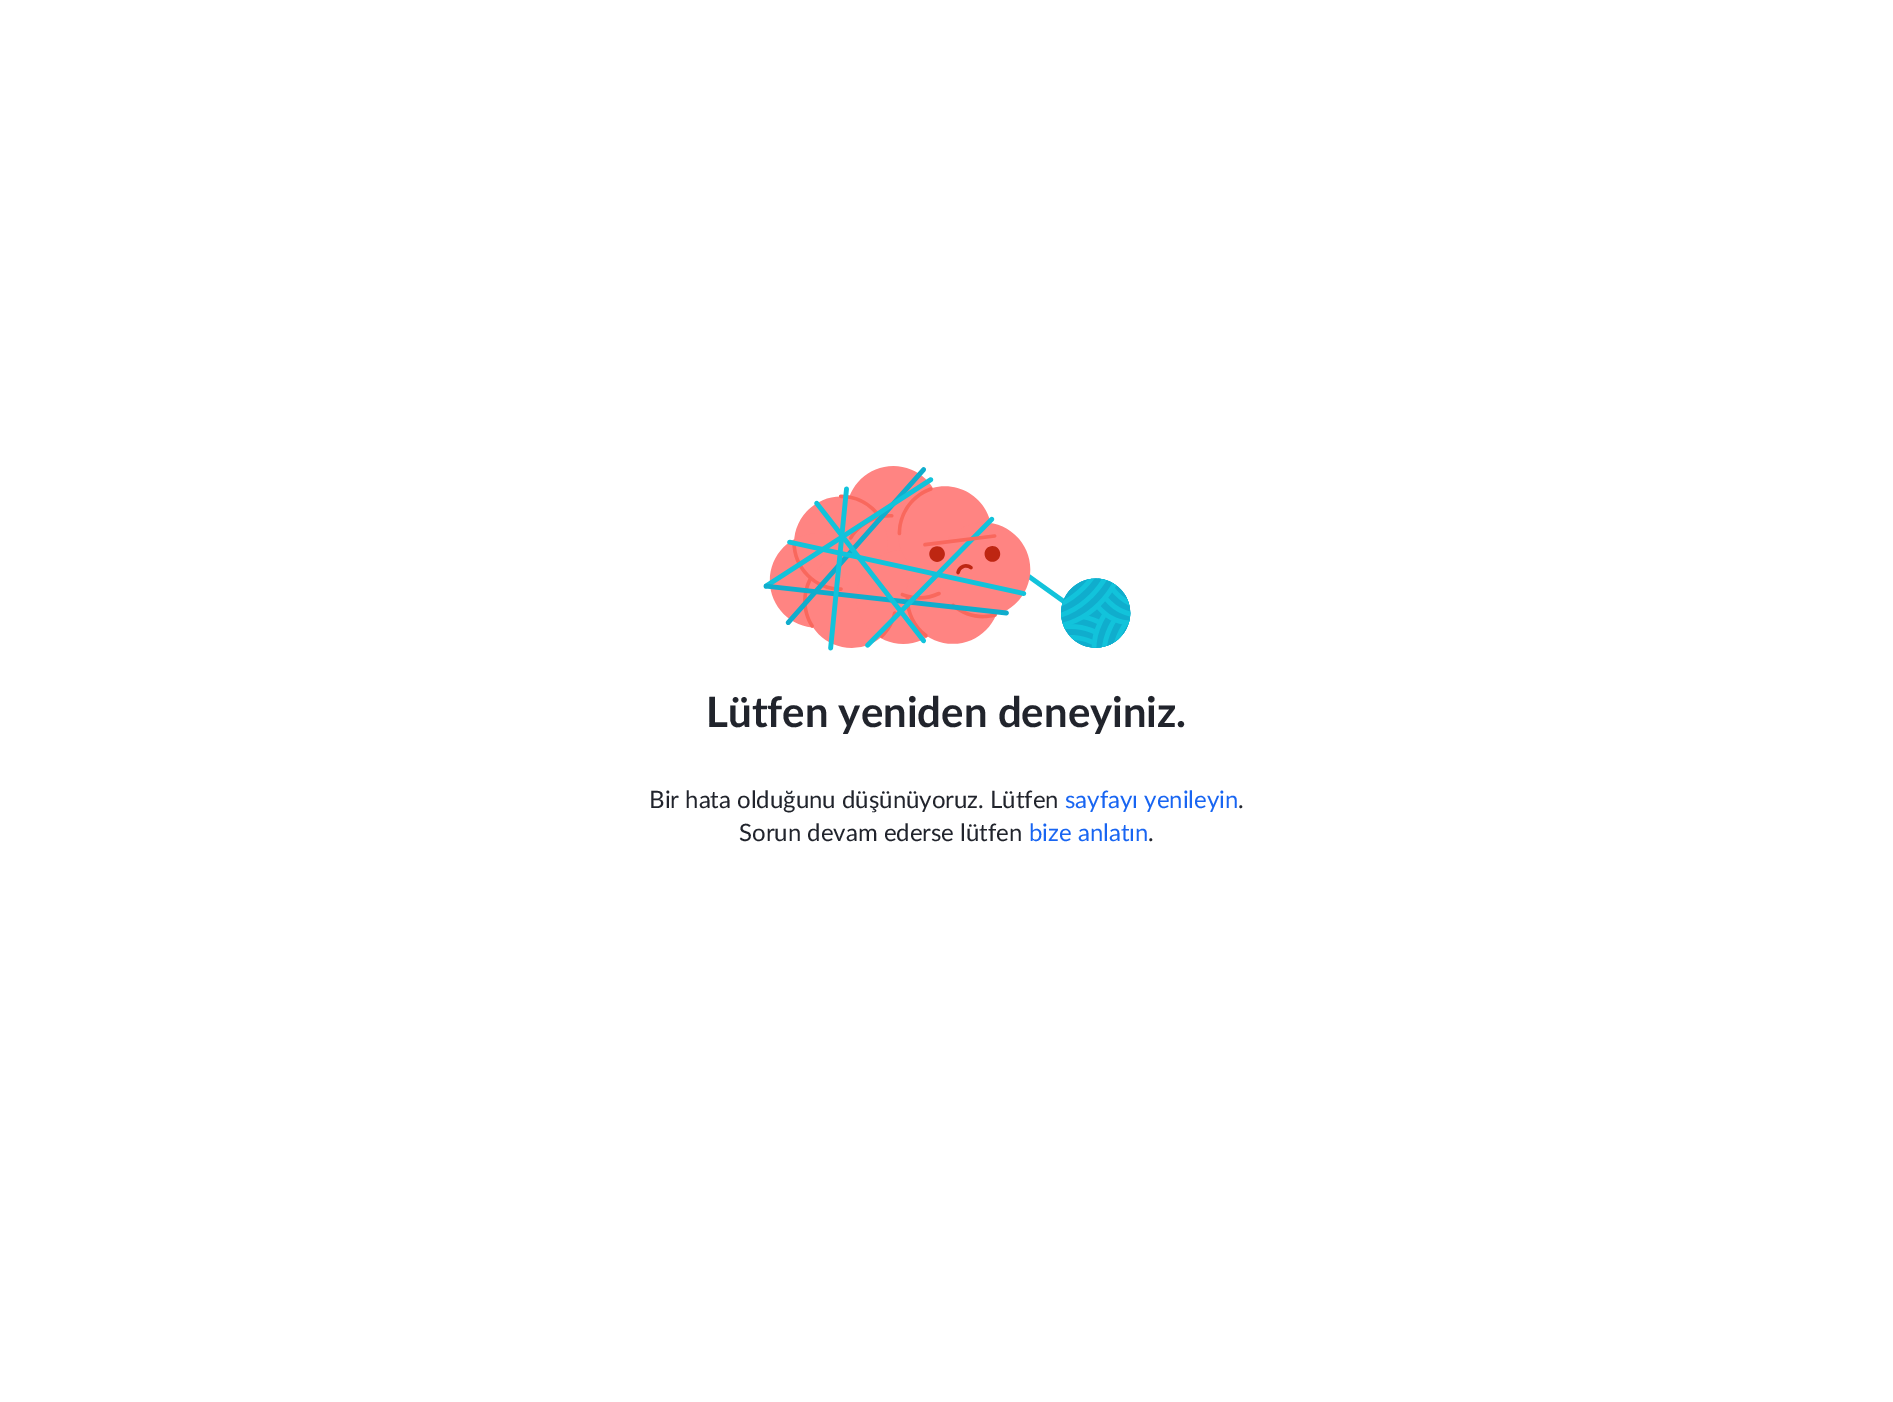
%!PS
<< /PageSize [1893 1402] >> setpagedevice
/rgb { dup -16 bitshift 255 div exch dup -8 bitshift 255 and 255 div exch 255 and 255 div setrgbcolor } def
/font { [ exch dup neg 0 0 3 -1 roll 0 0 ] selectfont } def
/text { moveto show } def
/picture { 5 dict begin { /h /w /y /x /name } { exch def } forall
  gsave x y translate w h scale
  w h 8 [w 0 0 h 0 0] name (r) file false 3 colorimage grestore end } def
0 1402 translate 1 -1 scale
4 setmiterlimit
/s1 { /Lato-Bold 42 font 16#21242C rgb } def
/s2 { /Lato-Regular 24 font 16#21242C rgb } def
/s3 { /Lato-Regular 24 font 16#1865F2 rgb } def
16#FFFFFF rgb
0 0 1893 1402 rectfill
(pic1.raw) 763 466 368 185 picture
s1
(Lütfen yeniden deneyiniz.) 706 727 text
s2
(Bir hata olduğunu düşünüyoruz. Lütfen) 649 808 text
s3
(sayfayı yenileyin) 1065 808 text
s2
(.) 1238 808 text
(Sorun devam ederse lütfen) 739 841 text
s3
(bize anlatın) 1029 841 text
s2
(.) 1148 841 text
showpage
